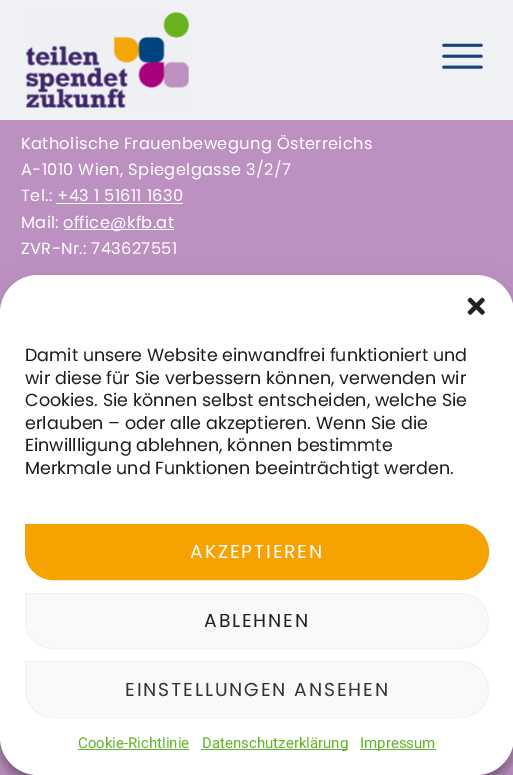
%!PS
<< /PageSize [513 775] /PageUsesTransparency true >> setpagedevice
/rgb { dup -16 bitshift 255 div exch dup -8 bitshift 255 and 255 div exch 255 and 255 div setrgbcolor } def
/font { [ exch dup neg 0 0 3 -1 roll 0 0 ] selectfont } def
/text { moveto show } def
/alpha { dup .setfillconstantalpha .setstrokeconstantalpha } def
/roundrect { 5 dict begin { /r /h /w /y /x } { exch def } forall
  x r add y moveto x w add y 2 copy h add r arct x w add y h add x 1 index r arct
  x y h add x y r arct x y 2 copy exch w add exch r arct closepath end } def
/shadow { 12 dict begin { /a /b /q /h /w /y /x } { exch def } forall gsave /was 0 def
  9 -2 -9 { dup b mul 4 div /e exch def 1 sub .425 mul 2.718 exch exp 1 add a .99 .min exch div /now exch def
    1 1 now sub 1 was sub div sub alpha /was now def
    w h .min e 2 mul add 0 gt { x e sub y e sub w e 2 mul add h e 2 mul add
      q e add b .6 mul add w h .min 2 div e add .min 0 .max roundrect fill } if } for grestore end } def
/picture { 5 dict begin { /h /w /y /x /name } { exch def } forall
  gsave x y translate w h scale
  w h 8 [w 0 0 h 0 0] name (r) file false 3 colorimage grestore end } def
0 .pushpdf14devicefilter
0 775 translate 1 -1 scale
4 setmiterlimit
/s1 { /Poppins-Regular 17.5 font 16#1D1D1B rgb } def
/s2 { /Roboto-Regular 15 font 16#64B32C rgb } def
16#BC90C1 rgb
0 0 513 775 rectfill
16#F0F1F5 rgb
0 0 513 120 rectfill
(pic1.raw) 25 12 164 96 picture
(pic2.raw) 442 43 41 26 picture
/Poppins-Regular 16.25 font
16#FFFFFF rgb
21 149 moveto 0.35 0 (Katholische Frauenbewegung Österreichs) ashow
21 175 moveto 0.35 0 (A-1010 Wien, Spiegelgasse 3/2/7) ashow
21 201 moveto 0.35 0 (Tel.: +43 1 51611 1630) ashow
56 203 127 1 rectfill
21 228 moveto 0.35 0 (Mail:) ashow
64 229 110 1 rectfill
63 228 moveto 0.35 0 (office@kfb.at) ashow
21 254 moveto 0.35 0 (ZVR-Nr.: 743627551) ashow
16#000000 rgb
0 283 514 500 38 4 0.23 shadow
0 288 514 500 38 12.5 0.19 shadow
16#FFFFFF rgb
0 275 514 500 38 roundrect fill
(pic3.raw) 467 297 18 18 picture
s1
(Damit unsere Website einwandfrei funktioniert und) 25 361 text
(wir diese für Sie verbessern können, verwenden wir) 25 384 text
(Cookies. Sie können selbst entscheiden, welche Sie) 25 406 text
(erlauben – oder alle akzeptieren. Wenn Sie die) 25 429 text
(Einwillligung ablehnen, können bestimmte) 25 451 text
(Merkmale und Funktionen beeinträchtigt werden.) 25 474 text
16#F6A200 rgb
25.5 524.5 moveto 461 524.5 lineto 476 524.5 488.5 537 488.5 552 curveto 488.5 567 476 579.5 461 579.5 curveto 53 579.5 lineto 38 579.5 25.5 567 25.5 552 curveto closepath gsave fill grestore
stroke
/Poppins-Regular 18.75 font
16#FFFFFF rgb
190 558 moveto 1.9 0 (AKZEPTIEREN) ashow
16#F9F9F9 rgb
25.5 593.5 moveto 461 593.5 lineto 476 593.5 488.5 606 488.5 621 curveto 488.5 636 476 648.5 461 648.5 curveto 53 648.5 lineto 38 648.5 25.5 636 25.5 621 curveto closepath gsave fill grestore
16#F2F2F2 rgb
stroke
16#222222 rgb
204 627 moveto 1.9 0 (ABLEHNEN) ashow
16#F9F9F9 rgb
25.5 661.5 moveto 460.5 661.5 lineto 476 661.5 488.5 674 488.5 689.5 curveto 488.5 705 476 717.5 460.5 717.5 curveto 53.5 717.5 lineto 38 717.5 25.5 705 25.5 689.5 curveto closepath gsave fill grestore
16#F2F2F2 rgb
stroke
16#333333 rgb
125 696 moveto 1.9 0 (EINSTELLUNGEN ANSEHEN) ashow
s2
(Cookie-Richtlinie) 78 748 text
78 749 111 1 rectfill
201 749 147 1 rectfill
(Datenschutzerklärung) 202 748 text
360 749 76 1 rectfill
(Impressum) 360 748 text
.poppdf14devicefilter showpage
